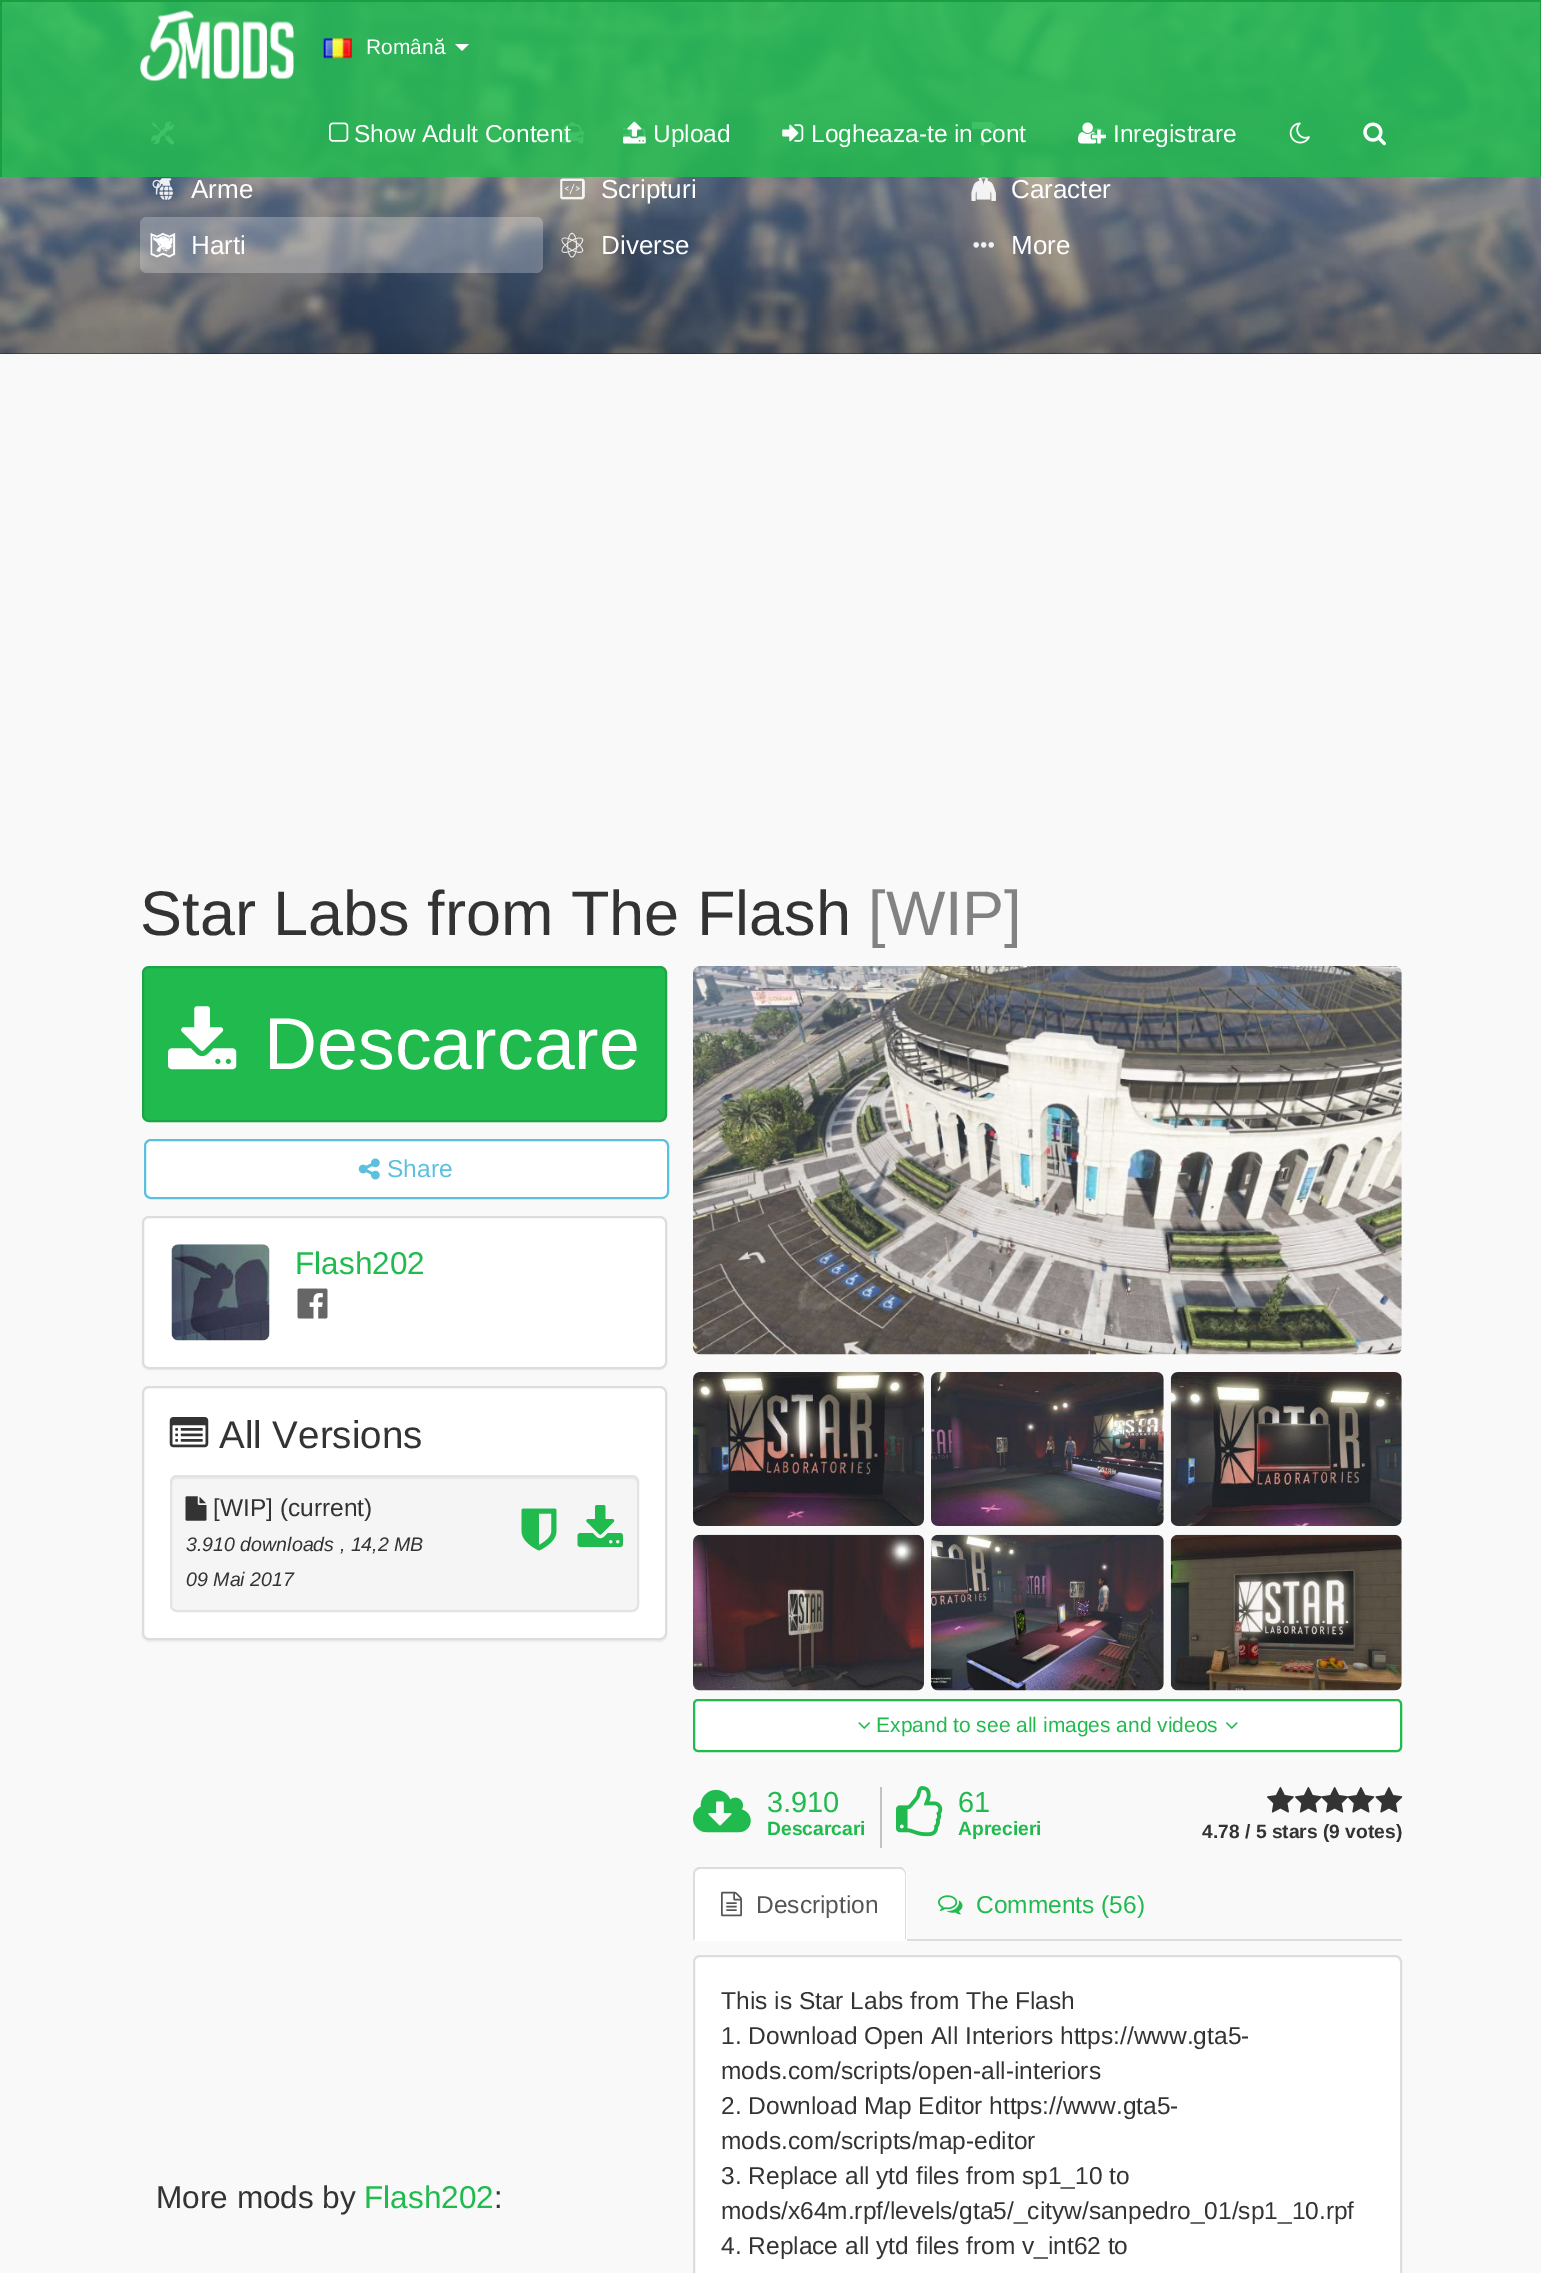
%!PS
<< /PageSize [1541 2273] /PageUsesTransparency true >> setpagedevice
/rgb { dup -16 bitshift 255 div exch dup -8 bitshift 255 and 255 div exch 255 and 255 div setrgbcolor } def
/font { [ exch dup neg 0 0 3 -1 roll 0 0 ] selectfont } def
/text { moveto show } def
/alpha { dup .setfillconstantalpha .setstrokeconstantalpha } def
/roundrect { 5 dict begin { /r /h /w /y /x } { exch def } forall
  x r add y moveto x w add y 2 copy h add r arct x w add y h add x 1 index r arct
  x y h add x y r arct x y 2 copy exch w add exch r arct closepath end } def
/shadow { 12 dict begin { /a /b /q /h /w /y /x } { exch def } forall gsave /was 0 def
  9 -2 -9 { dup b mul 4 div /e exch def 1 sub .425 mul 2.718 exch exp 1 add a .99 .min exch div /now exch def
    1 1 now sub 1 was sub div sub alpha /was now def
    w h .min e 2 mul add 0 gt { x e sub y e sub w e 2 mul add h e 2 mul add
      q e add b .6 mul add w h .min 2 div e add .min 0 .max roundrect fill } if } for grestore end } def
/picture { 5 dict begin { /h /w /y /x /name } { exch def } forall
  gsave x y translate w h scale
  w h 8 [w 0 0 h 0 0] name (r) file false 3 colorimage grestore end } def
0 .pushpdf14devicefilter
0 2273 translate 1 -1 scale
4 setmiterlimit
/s1 { /LiberationSans-Regular 21 font 16#FFFFFF rgb } def
/s2 { /LiberationSans-Regular 24.5 font 16#FFFFFF rgb } def
/s3 { /LiberationSans-Regular 26 font 16#FFFFFF rgb } def
/s4 { /LiberationSans-Regular 63 font 16#333333 rgb } def
/s5 { /LiberationSans-Regular 63 font 16#828282 rgb } def
/s6 { /LiberationSans-Regular 73.5 font 16#FFFFFF rgb } def
/s7 { /LiberationSans-Regular 24.5 font 16#5BC0DE rgb } def
/s8 { /LiberationSans-Regular 31.5 font 16#20BA4E rgb } def
/s9 { /LiberationSans-Regular 38.5 font 16#333333 rgb } def
/s10 { /LiberationSans-Regular 24.5 font 16#333333 rgb } def
/s11 { /LiberationSans-Italic 19.6 font 16#333333 rgb } def
/s12 { /LiberationSans-Regular 31.5 font 16#333333 rgb } def
/s13 { /LiberationSans-Regular 21 font 16#20BA4E rgb } def
/s14 { /LiberationSans-Regular 29 font 16#20BA4E rgb } def
/s15 { /LiberationSans-Bold 19.25 font 16#20BA4E rgb } def
/s16 { /LiberationSans-Bold 19.25 font 16#333333 rgb } def
/s17 { /LiberationSans-Regular 24.5 font 16#555555 rgb } def
/s18 { /LiberationSans-Regular 24.5 font 16#20BA4E rgb } def
16#F9F9F9 rgb
0 0 1541 2273 rectfill
16#222222 rgb
0 353 1541 1 rectfill
(pic9.raw) 0 2 1541 352 picture
(pic10.raw) 151 121 23 24 picture
(pic11.raw) 560 122 25 22 picture
(pic12.raw) 971 122 25 24 picture
0.85 alpha
16#20BA4E rgb
2 2 1538 175 rectfill
1 alpha
16#1B9E42 rgb
0 0 1541 2 rectfill
1540 0 1 177 rectfill
0 0 2 177 rectfill
(pic1.raw) 140 10 154 71 picture
(pic2.raw) 323 38 29 21 picture
s1
(Română) 366 54 text
455 44 moveto 469 44 lineto 462 51 lineto closepath fill
(pic3.raw) 329 122 20 20 picture
s2
(Show Adult Content) 354 142 text
(pic4.raw) 623 121 23 23 picture
(Upload) 653 142 text
(pic5.raw) 782 124 22 18 picture
(Logheaza-te in cont) 811 142 text
(pic6.raw) 1078 122 28 22 picture
(Inregistrare) 1113 142 text
(pic7.raw) 1289 122 21 22 picture
(pic8.raw) 1363 122 23 24 picture
(pic13.raw) 152 178 22 22 picture
s3
(Arme) 191 198 text
(pic14.raw) 560 178 25 22 picture
(Scripturi) 601 198 text
(pic15.raw) 971 177 25 24 picture
(Caracter) 1011 198 text
0.25 alpha
140 217 403 56 7 roundrect fill
1 alpha
(pic16.raw) 150 232 26 26 picture
(Harti) 191 254 text
(pic17.raw) 561 232 23 26 picture
(Diverse) 601 254 text
(pic18.raw) 973 241 21 7 picture
(More) 1011 254 text
s4
(Star Labs from The Flash) 140 935 text
s5
([WIP]) 868 935 text
16#20BA4E rgb
143 967 523 154 6 roundrect gsave fill grestore
16#1CA445 rgb
2 setlinewidth
stroke
(pic19.raw) 168 1006 69 64 picture
s6
(Descarcare) 264 1069 text
145 1140 523 58 6 roundrect gsave fill grestore
16#5BC0DE rgb
stroke
(pic20.raw) 358 1158 22 22 picture
s7
(Share) 387 1177 text
16#000000 rgb
142 1218 525 152 7 1 0.05 shadow
16#FFFFFF rgb
143 1217 523 151 6 roundrect gsave fill grestore
16#DDDDDD rgb
stroke
(pic21.raw) 171 1244 99 97 picture
s8
(Flash202) 295 1274 text
(pic22.raw) 297 1288 31 31 picture
16#000000 rgb
142 1388 525 254 7 1 0.05 shadow
16#FFFFFF rgb
143 1387 523 252 6 roundrect gsave fill grestore
16#DDDDDD rgb
stroke
(pic23.raw) 169 1417 40 31 picture
s9
(All Versions) 219 1448 text
16#F5F5F5 rgb
170 1475 469 137 7 roundrect fill
16#E9E9E9 rgb
177 1479 moveto 632 1479 lineto 635 1479 637 1481 637 1484 curveto 637 1481 636 1477 632 1477 curveto 177 1477 lineto 173 1477 172 1481 172 1484 curveto 172 1481 174 1479 177 1479 curveto closepath fill
16#E3E3E3 rgb
171 1476 467 135 6 roundrect stroke
(pic24.raw) 185 1496 22 25 picture
s10
([WIP] \(current\)) 213 1516 text
s11
(3.910 downloads , 14,2 MB) 186 1551 text
(09 Mai 2017) 186 1586 text
(pic25.raw) 521 1508 36 43 picture
(pic26.raw) 577 1505 46 42 picture
s12
(More mods by) 156 2208 text
s8
(Flash202) 364 2208 text
s12
(:) 494 2208 text
(pic27.raw) 693 966 709 389 picture
(pic28.raw) 693 1372 231 154 picture
(pic29.raw) 931 1372 233 154 picture
(pic30.raw) 1170 1372 232 154 picture
(pic31.raw) 693 1534 231 157 picture
(pic32.raw) 931 1534 233 157 picture
(pic33.raw) 1170 1534 232 157 picture
16#FFFFFF rgb
694 1700 707 51 4 roundrect gsave fill grestore
16#20BA4E rgb
stroke
(pic34.raw) 858 1722 12 7 picture
s13
(Expand to see all images and videos) 876 1732 text
(pic35.raw) 1226 1722 12 7 picture
(pic36.raw) 693 1789 58 44 picture
16#C2C2C2 rgb
880 1787 2 61 rectfill
s14
(3.910) 767 1812 text
s15
(Descarcari) 767 1835 text
(pic37.raw) 896 1786 47 51 picture
s14
(61) 958 1812 text
s15
(Aprecieri) 958 1835 text
(pic38.raw) 1267 1787 27 26 picture
(pic38.raw) 1295 1787 27 26 picture
(pic39.raw) 1321 1787 27 26 picture
(pic40.raw) 1347 1787 28 26 picture
(pic41.raw) 1375 1787 28 26 picture
s16
(4.78 / 5 stars \(9 votes\)) 1202 1838 text
16#DDDDDD rgb
907 1939 495 2 rectfill
16#FFFFFF rgb
700 1867 moveto 900 1867 lineto 904 1867 907 1870 907 1874 curveto 907 1941 lineto 693 1941 lineto 693 1874 lineto 693 1870 696 1867 700 1867 curveto closepath fill
16#DDDDDD rgb
700 1869 moveto 698 1869 697 1870 696 1871 curveto 695 1869 lineto 698 1867 lineto 902 1867 lineto 904 1869 lineto 903 1870 lineto 900 1869 lineto closepath fill
904 1869 moveto 905 1871 906 1872 906 1874 curveto 906 1940 lineto 905 1939 lineto 905 1873 lineto 903 1870 lineto closepath fill
693 1941 moveto 695 1939 lineto 695 1874 lineto 695 1873 695 1871 696 1871 curveto 695 1869 lineto 694 1870 693 1872 693 1874 curveto closepath fill
(pic42.raw) 721 1891 21 26 picture
s17
(Description) 756 1913 text
(pic43.raw) 938 1895 25 20 picture
s18
(Comments \(56\)) 976 1913 text
16#FFFFFF rgb
694 1956 707 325 6 roundrect gsave fill grestore
16#DDDDDD rgb
stroke
s10
(This is Star Labs from The Flash) 721 2009 text
(1. Download Open All Interiors https://www.gta5-) 721 2044 text
(mods.com/scripts/open-all-interiors) 721 2079 text
(2. Download Map Editor https://www.gta5-) 721 2114 text
(mods.com/scripts/map-editor) 721 2149 text
(3. Replace all ytd files from sp1_10 to) 721 2184 text
(mods/x64m.rpf/levels/gta5/_cityw/sanpedro_01/sp1_10.rpf) 721 2219 text
(4. Replace all ytd files from v_int62 to) 721 2254 text
.poppdf14devicefilter showpage
